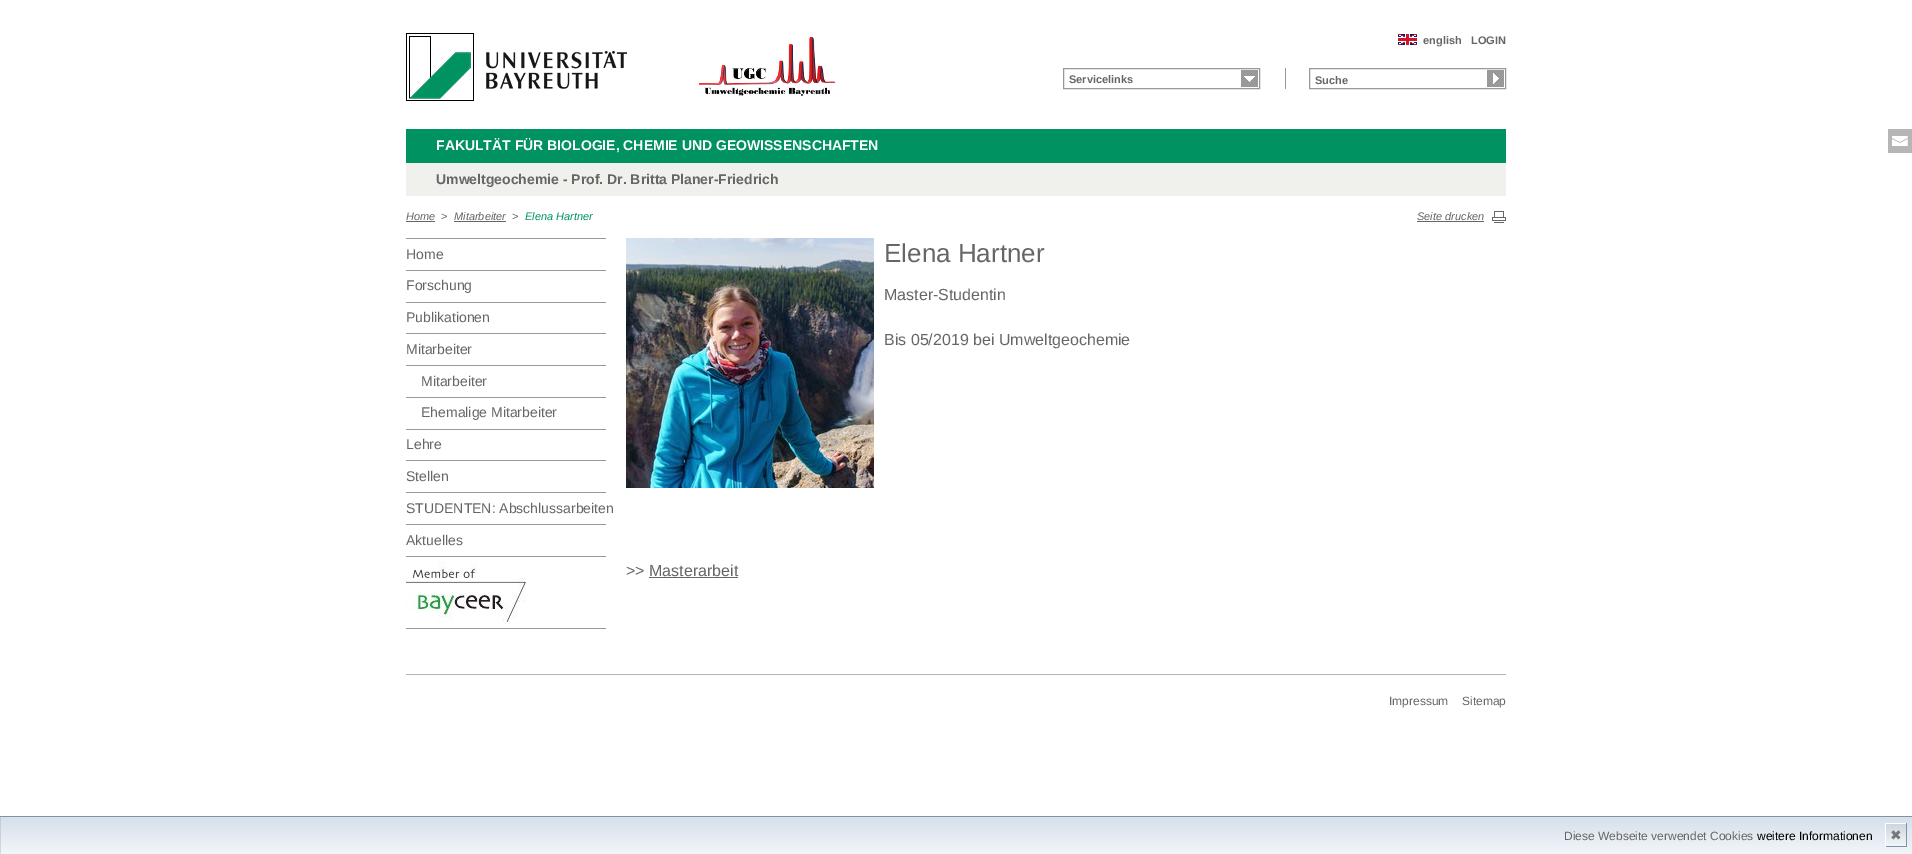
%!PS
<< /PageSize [1912 854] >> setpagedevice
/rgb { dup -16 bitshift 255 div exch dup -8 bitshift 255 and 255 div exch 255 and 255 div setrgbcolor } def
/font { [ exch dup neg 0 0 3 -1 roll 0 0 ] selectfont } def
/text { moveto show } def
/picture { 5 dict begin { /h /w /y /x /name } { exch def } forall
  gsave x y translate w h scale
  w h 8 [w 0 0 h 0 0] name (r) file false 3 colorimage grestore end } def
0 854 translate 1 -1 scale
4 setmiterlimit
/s1 { /LiberationSans-Bold 11 font 16#666666 rgb } def
/s2 { /LiberationSans-Bold 14 font 16#FFFFFF rgb } def
/s3 { /LiberationSans-Bold 14 font 16#666666 rgb } def
/s4 { /LiberationSans-Italic 11 font 16#666666 rgb } def
/s5 { /LiberationSans-Regular 11 font 16#666666 rgb } def
/s6 { /LiberationSans-Italic 11 font 16#009260 rgb } def
/s7 { /LiberationSans-Regular 14 font 16#666666 rgb } def
/s8 { /LiberationSans-Regular 26 font 16#666666 rgb } def
/s9 { /LiberationSans-Regular 16 font 16#666666 rgb } def
/s10 { /LiberationSans-Regular 12 font 16#666666 rgb } def
/s11 { /LiberationSans-Regular 12 font 16#000000 rgb } def
/s12 { /DejaVuSans-Regular 14 font 16#777777 rgb } def
16#FFFFFF rgb
0 0 1912 854 rectfill
(pic1.raw) 406 33 221 68 picture
(pic2.raw) 699 37 137 59 picture
(pic3.raw) 1241 70 17 17 picture
16#999999 rgb
1063.5 68.5 196 20 rectstroke
s1
(Servicelinks) 1069 83 text
16#999999 rgb
1285 68 1 21 rectfill
1309.5 68.5 196 20 rectstroke
s1
(Suche) 1315 84 text
16#999999 rgb
1487 70 17 17 rectfill
(pic4.raw) 1493 73 6 11 picture
(pic5.raw) 1398 34 19 11 picture
s1
(english) 1423 44 text
(LOGIN) 1471 44 text
16#009260 rgb
406 129 1100 34 rectfill
s2
(FAKULTÄT FÜR BIOLOGIE, CHEMIE UND GEOWISSENSCHAFTEN) 436 150 text
16#F0F0ED rgb
406 163 1100 33 rectfill
s3
(Umweltgeochemie - Prof. Dr. Britta Planer-Friedrich) 436 184 text
s4
(Home) 406 220 text
406 221 29 1 rectfill
s5
(>) 441 220 text
s4
(Mitarbeiter) 454 220 text
454 221 52 1 rectfill
s5
(>) 512 220 text
s6
(Elena Hartner) 525 220 text
(pic6.raw) 1492 211 14 12 picture
s4
(Seite drucken) 1417 220 text
1417 221 67 1 rectfill
16#B6B6B6 rgb
1888 129 24 24 rectfill
(pic7.raw) 1892 136 16 10 picture
16#999999 rgb
406 628 200 1 rectfill
406 238 200 1 rectfill
s7
(Home) 406 259 text
16#999999 rgb
406 270 200 1 rectfill
s7
(Forschung) 406 290 text
16#999999 rgb
406 302 200 1 rectfill
s7
(Publikationen) 406 322 text
16#999999 rgb
406 333 200 1 rectfill
s7
(Mitarbeiter) 406 354 text
16#999999 rgb
406 365 200 1 rectfill
s7
(Mitarbeiter) 421 386 text
16#999999 rgb
406 397 200 1 rectfill
s7
(Ehemalige Mitarbeiter) 421 417 text
16#999999 rgb
406 429 200 1 rectfill
s7
(Lehre) 406 449 text
16#999999 rgb
406 460 200 1 rectfill
s7
(Stellen) 406 481 text
16#999999 rgb
406 492 200 1 rectfill
s7
(STUDENTEN: Abschlussarbeiten) 406 513 text
16#999999 rgb
406 524 200 1 rectfill
s7
(Aktuelles) 406 545 text
16#999999 rgb
406 556 200 1 rectfill
(pic8.raw) 406 562 120 60 picture
(pic9.raw) 626 238 248 250 picture
s8
(Elena Hartner) 884 262 text
s9
(Master-Studentin) 884 300 text
(Bis 05/2019 bei Umweltgeochemie) 884 345 text
(>> Masterarbeit) 626 576 text
649 577 89 1 rectfill
16#B4B4B4 rgb
406 674 1100 1 rectfill
s10
(Impressum) 1389 705 text
(Sitemap) 1462 705 text
gsave 0 818 moveto 1912 818 lineto 1912 854 lineto 0 854 lineto closepath clip newpath
<< /ShadingType 2 /ColorSpace /DeviceRGB /Coords [956 818 956 854] /Extend [true true] /Function << /FunctionType 2 /Domain [0 1] /C0 [0.839 0.878 0.922] /C1 [0.949 0.965 0.976] /N 1 >> >> shfill grestore
16#7B92A9 rgb
-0.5 816.5 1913 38 rectstroke
s10
(Diese Webseite verwendet Cookies) 1564 840 text
s11
(weitere Informationen) 1757 840 text
gsave 1886 824 moveto 1906 824 lineto 1906 846 lineto 1886 846 lineto closepath clip newpath
<< /ShadingType 2 /ColorSpace /DeviceRGB /Coords [1896 824 1896 846] /Extend [true true] /Function << /FunctionType 2 /Domain [0 1] /C0 [0.808 0.839 0.875] /C1 [0.949 0.965 0.976] /N 1 >> >> shfill grestore
16#FFFFFF rgb
1885 823 22 1 rectfill
16#7B92A9 rgb
1906 823 1 24 rectfill
1885 846 22 1 rectfill
16#FFFFFF rgb
1885 823 1 24 rectfill
s12
(✖) 1890 840 text
showpage
